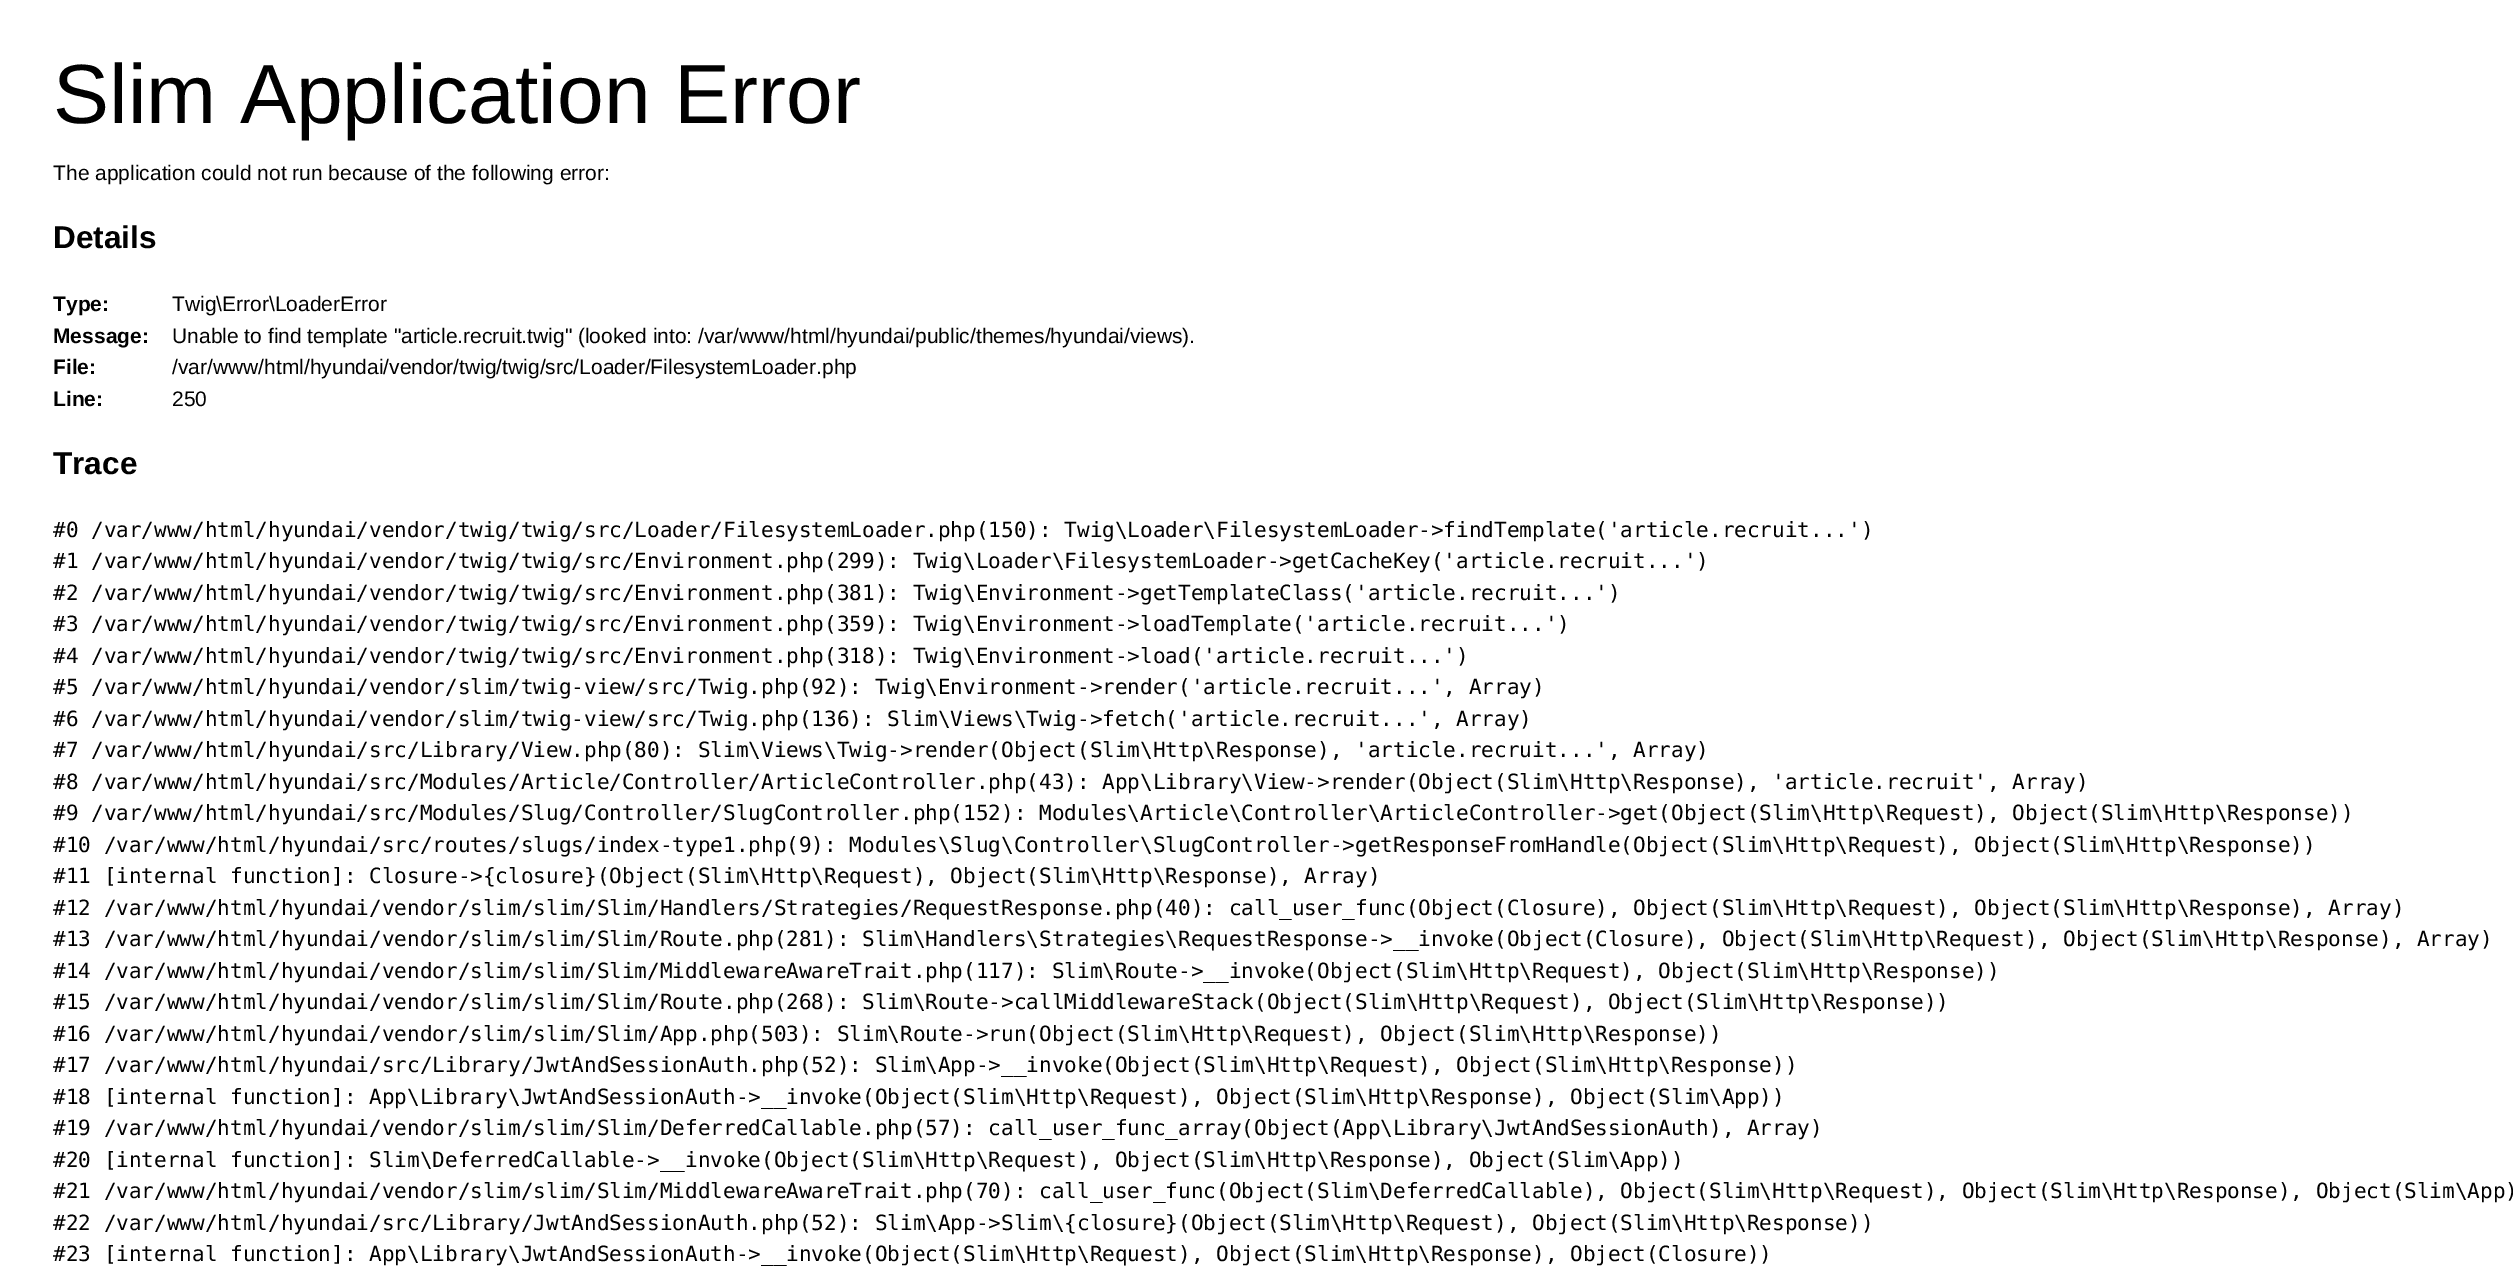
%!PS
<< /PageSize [2513 1284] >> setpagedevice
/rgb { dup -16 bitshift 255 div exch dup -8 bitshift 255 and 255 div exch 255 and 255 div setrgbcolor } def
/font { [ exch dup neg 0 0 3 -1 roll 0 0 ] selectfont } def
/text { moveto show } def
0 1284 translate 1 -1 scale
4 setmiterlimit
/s1 { /LiberationSans-Regular 84 font 16#000000 rgb } def
/s2 { /LiberationSans-Regular 21 font 16#000000 rgb } def
/s3 { /LiberationSans-Bold 31.5 font 16#000000 rgb } def
/s4 { /LiberationSans-Bold 21 font 16#000000 rgb } def
/s5 { /DejaVuSansMono-Regular 21 font 16#000000 rgb } def
16#FFFFFF rgb
0 0 2513 1284 rectfill
s1
(Slim Application Error) 53 123 text
s2
(The application could not run because of the following error:) 53 180 text
s3
(Details) 53 248 text
s4
(Type:) 53 311 text
s2
(Twig\\Error\\LoaderError) 172 311 text
s4
(Message:) 53 343 text
s2
(Unable to find template "article.recruit.twig" \(looked into: /var/www/html/hyundai/public/themes/hyundai/views\).) 172 343 text
s4
(File:) 53 374 text
s2
(/var/www/html/hyundai/vendor/twig/twig/src/Loader/FilesystemLoader.php) 172 374 text
s4
(Line:) 53 406 text
s2
(250) 172 406 text
s3
(Trace) 53 474 text
s5
(#0 /var/www/html/hyundai/vendor/twig/twig/src/Loader/FilesystemLoader.php\(150\): Twig\\Loader\\FilesystemLoader->findTemplate\('article.recruit...'\)) 53 537 text
(#1 /var/www/html/hyundai/vendor/twig/twig/src/Environment.php\(299\): Twig\\Loader\\FilesystemLoader->getCacheKey\('article.recruit...'\)) 53 568 text
(#2 /var/www/html/hyundai/vendor/twig/twig/src/Environment.php\(381\): Twig\\Environment->getTemplateClass\('article.recruit...'\)) 53 600 text
(#3 /var/www/html/hyundai/vendor/twig/twig/src/Environment.php\(359\): Twig\\Environment->loadTemplate\('article.recruit...'\)) 53 631 text
(#4 /var/www/html/hyundai/vendor/twig/twig/src/Environment.php\(318\): Twig\\Environment->load\('article.recruit...'\)) 53 663 text
(#5 /var/www/html/hyundai/vendor/slim/twig-view/src/Twig.php\(92\): Twig\\Environment->render\('article.recruit...', Array\)) 53 694 text
(#6 /var/www/html/hyundai/vendor/slim/twig-view/src/Twig.php\(136\): Slim\\Views\\Twig->fetch\('article.recruit...', Array\)) 53 726 text
(#7 /var/www/html/hyundai/src/Library/View.php\(80\): Slim\\Views\\Twig->render\(Object\(Slim\\Http\\Response\), 'article.recruit...', Array\)) 53 757 text
(#8 /var/www/html/hyundai/src/Modules/Article/Controller/ArticleController.php\(43\): App\\Library\\View->render\(Object\(Slim\\Http\\Response\), 'article.recruit', Array\)) 53 789 text
(#9 /var/www/html/hyundai/src/Modules/Slug/Controller/SlugController.php\(152\): Modules\\Article\\Controller\\ArticleController->get\(Object\(Slim\\Http\\Request\), Object\(Slim\\Http\\Response\)\)) 53 820 text
(#10 /var/www/html/hyundai/src/routes/slugs/index-type1.php\(9\): Modules\\Slug\\Controller\\SlugController->getResponseFromHandle\(Object\(Slim\\Http\\Request\), Object\(Slim\\Http\\Response\)\)) 53 852 text
(#11 [internal function]: Closure->{closure}\(Object\(Slim\\Http\\Request\), Object\(Slim\\Http\\Response\), Array\)) 53 883 text
(#12 /var/www/html/hyundai/vendor/slim/slim/Slim/Handlers/Strategies/RequestResponse.php\(40\): call_user_func\(Object\(Closure\), Object\(Slim\\Http\\Request\), Object\(Slim\\Http\\Response\), Array\)) 53 915 text
(#13 /var/www/html/hyundai/vendor/slim/slim/Slim/Route.php\(281\): Slim\\Handlers\\Strategies\\RequestResponse->__invoke\(Object\(Closure\), Object\(Slim\\Http\\Request\), Object\(Slim\\Http\\Response\), Array\)) 53 946 text
(#14 /var/www/html/hyundai/vendor/slim/slim/Slim/MiddlewareAwareTrait.php\(117\): Slim\\Route->__invoke\(Object\(Slim\\Http\\Request\), Object\(Slim\\Http\\Response\)\)) 53 978 text
(#15 /var/www/html/hyundai/vendor/slim/slim/Slim/Route.php\(268\): Slim\\Route->callMiddlewareStack\(Object\(Slim\\Http\\Request\), Object\(Slim\\Http\\Response\)\)) 53 1009 text
(#16 /var/www/html/hyundai/vendor/slim/slim/Slim/App.php\(503\): Slim\\Route->run\(Object\(Slim\\Http\\Request\), Object\(Slim\\Http\\Response\)\)) 53 1041 text
(#17 /var/www/html/hyundai/src/Library/JwtAndSessionAuth.php\(52\): Slim\\App->__invoke\(Object\(Slim\\Http\\Request\), Object\(Slim\\Http\\Response\)\)) 53 1072 text
(#18 [internal function]: App\\Library\\JwtAndSessionAuth->__invoke\(Object\(Slim\\Http\\Request\), Object\(Slim\\Http\\Response\), Object\(Slim\\App\)\)) 53 1104 text
(#19 /var/www/html/hyundai/vendor/slim/slim/Slim/DeferredCallable.php\(57\): call_user_func_array\(Object\(App\\Library\\JwtAndSessionAuth\), Array\)) 53 1135 text
(#20 [internal function]: Slim\\DeferredCallable->__invoke\(Object\(Slim\\Http\\Request\), Object\(Slim\\Http\\Response\), Object\(Slim\\App\)\)) 53 1167 text
(#21 /var/www/html/hyundai/vendor/slim/slim/Slim/MiddlewareAwareTrait.php\(70\): call_user_func\(Object\(Slim\\DeferredCallable\), Object\(Slim\\Http\\Request\), Object\(Slim\\Http\\Response\), Object\(Slim\\App\)) 53 1198 text
(#22 /var/www/html/hyundai/src/Library/JwtAndSessionAuth.php\(52\): Slim\\App->Slim\\{closure}\(Object\(Slim\\Http\\Request\), Object\(Slim\\Http\\Response\)\)) 53 1230 text
(#23 [internal function]: App\\Library\\JwtAndSessionAuth->__invoke\(Object\(Slim\\Http\\Request\), Object\(Slim\\Http\\Response\), Object\(Closure\)\)) 53 1261 text
showpage
